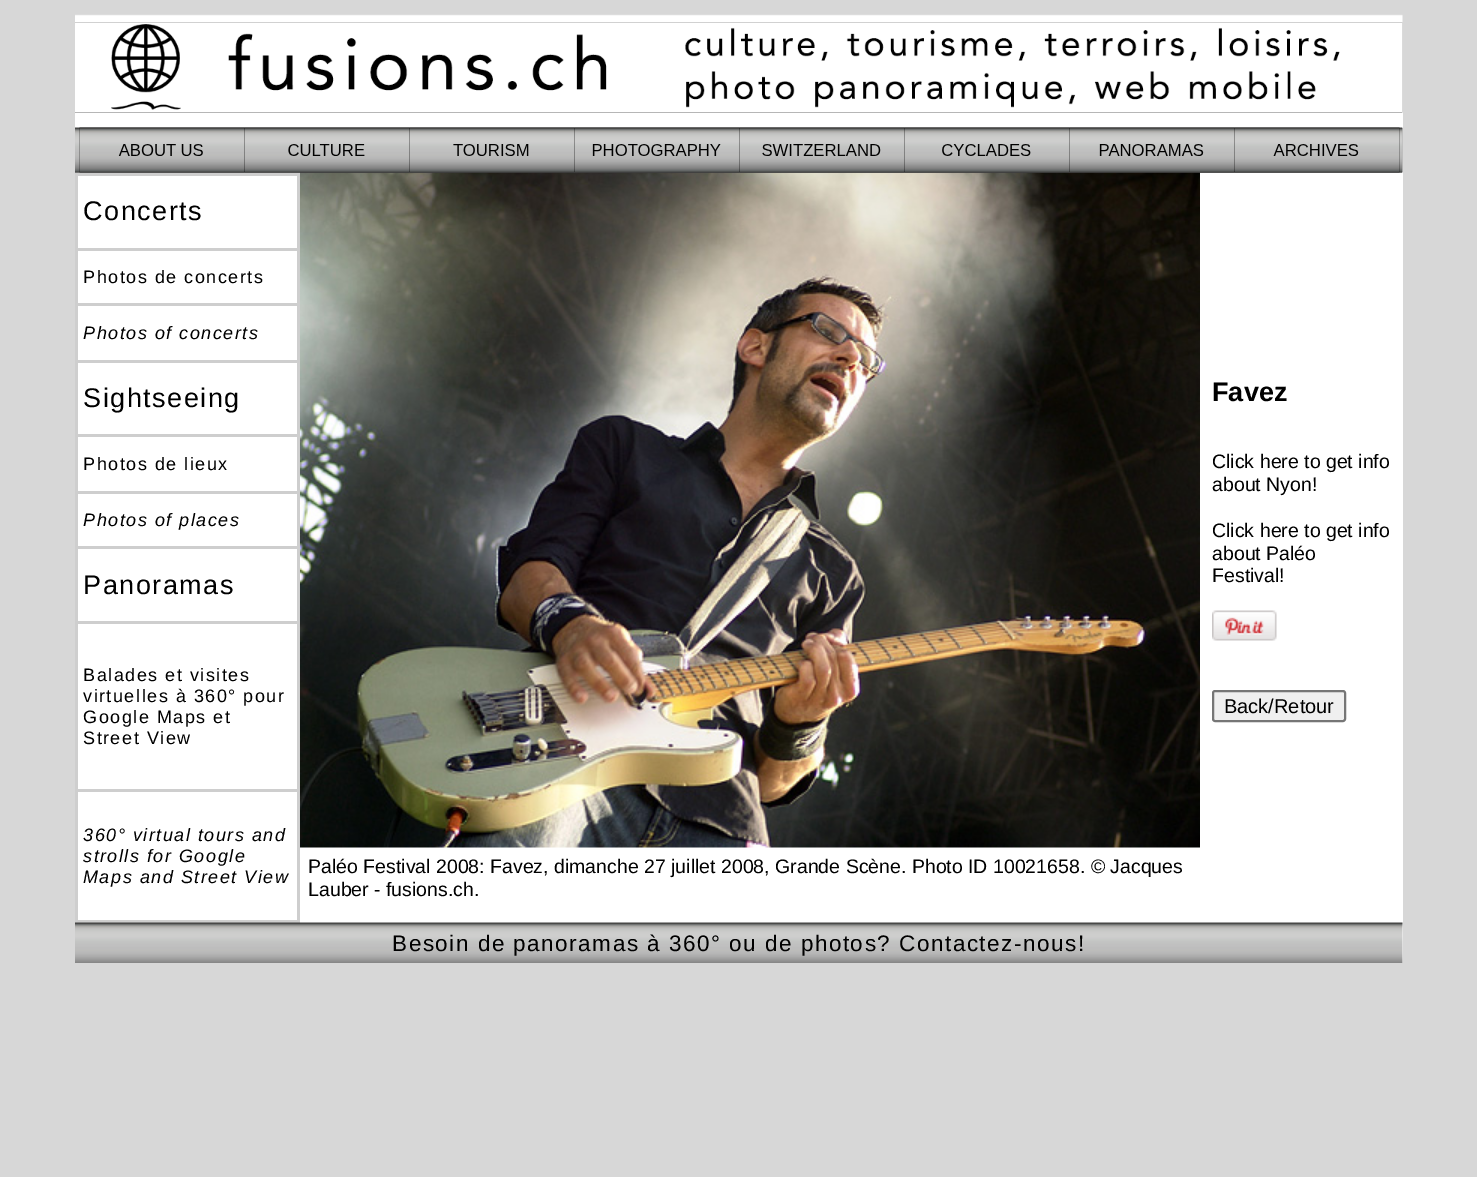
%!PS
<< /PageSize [1477 1177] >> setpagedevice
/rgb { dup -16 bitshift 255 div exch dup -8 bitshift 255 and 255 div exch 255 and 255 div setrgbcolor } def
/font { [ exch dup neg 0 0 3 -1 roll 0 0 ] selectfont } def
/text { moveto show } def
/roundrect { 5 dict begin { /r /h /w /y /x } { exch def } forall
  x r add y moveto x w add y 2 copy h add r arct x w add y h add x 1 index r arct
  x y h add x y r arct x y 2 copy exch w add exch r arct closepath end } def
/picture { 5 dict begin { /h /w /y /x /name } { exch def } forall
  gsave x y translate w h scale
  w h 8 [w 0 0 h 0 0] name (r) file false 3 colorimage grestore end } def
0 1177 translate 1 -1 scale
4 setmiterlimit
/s1 { /LiberationSans-Bold 27 font 16#000000 rgb } def
/s2 { /LiberationSans-Regular 19.5 font 16#000000 rgb } def
/s3 { /LiberationSans-Regular 20 font 16#000000 rgb } def
16#D7D7D7 rgb
0 0 1477 1177 rectfill
(pic1.raw) 75 14 1328 9 picture
16#FFFFFF rgb
75 23 1328 940 rectfill
(pic2.raw) 75 22 1328 91 picture
(pic5.raw) 300 172 900 676 picture
(pic3.raw) 75 127 1328 46 picture
16#CECECE rgb
75 173 225 750 rectfill
16#FFFFFF rgb
78 176 219 72 rectfill
/LiberationSans-Regular 27 font
16#000000 rgb
83 220 moveto 1.5 0 (Concerts) ashow
16#FFFFFF rgb
78 251 219 52 rectfill
/LiberationSans-Regular 18 font
16#000000 rgb
83 283 moveto 1.5 0 (Photos de concerts) ashow
16#FFFFFF rgb
78 306 219 54 rectfill
/LiberationSans-Italic 18 font
16#000000 rgb
83 339 moveto 1.5 0 (Photos of concerts) ashow
16#FFFFFF rgb
78 363 219 71 rectfill
/LiberationSans-Regular 27 font
16#000000 rgb
83 407 moveto 1.5 0 (Sightseeing) ashow
16#FFFFFF rgb
78 437 219 54 rectfill
/LiberationSans-Regular 18 font
16#000000 rgb
83 470 moveto 1.5 0 (Photos de lieux) ashow
16#FFFFFF rgb
78 494 219 52 rectfill
/LiberationSans-Italic 18 font
16#000000 rgb
83 526 moveto 1.5 0 (Photos of places) ashow
16#FFFFFF rgb
78 549 219 72 rectfill
/LiberationSans-Regular 27 font
16#000000 rgb
83 594 moveto 1.5 0 (Panoramas) ashow
16#FFFFFF rgb
78 624 219 165 rectfill
/LiberationSans-Regular 18 font
16#000000 rgb
83 681 moveto 1.5 0 (Balades et visites) ashow
83 702 moveto 1.5 0 (virtuelles à 360° pour) ashow
83 723 moveto 1.5 0 (Google Maps et) ashow
83 744 moveto 1.5 0 (Street View) ashow
16#FFFFFF rgb
78 792 219 128 rectfill
/LiberationSans-Italic 18 font
16#000000 rgb
83 841 moveto 1.5 0 (360° virtual tours and) ashow
83 862 moveto 1.5 0 (strolls for Google) ashow
83 883 moveto 1.5 0 (Maps and Street View) ashow
s1
(Favez) 1212 401 text
s2
(Click here to get info) 1212 468 text
(about Nyon!) 1212 491 text
(Click here to get info) 1212 537 text
(about Paléo) 1212 560 text
(Festival!) 1212 582 text
(pic4.raw) 1212 610 65 31 picture
16#EFEFEF rgb
1213 691 132 30 2 roundrect gsave fill grestore
16#767676 rgb
2 setlinewidth
stroke
s3
(Back/Retour) 1224 713 text
s2
(Paléo Festival 2008: Favez, dimanche 27 juillet 2008, Grande Scène. Photo ID 10021658. © Jacques) 308 873 text
(Lauber - fusions.ch.) 308 896 text
(pic6.raw) 75 922 1328 41 picture
/LiberationSans-Regular 22.5 font
392 951 moveto 1.5 0 (Besoin de panoramas à 360° ou de photos? Contactez-nous!) ashow
showpage
